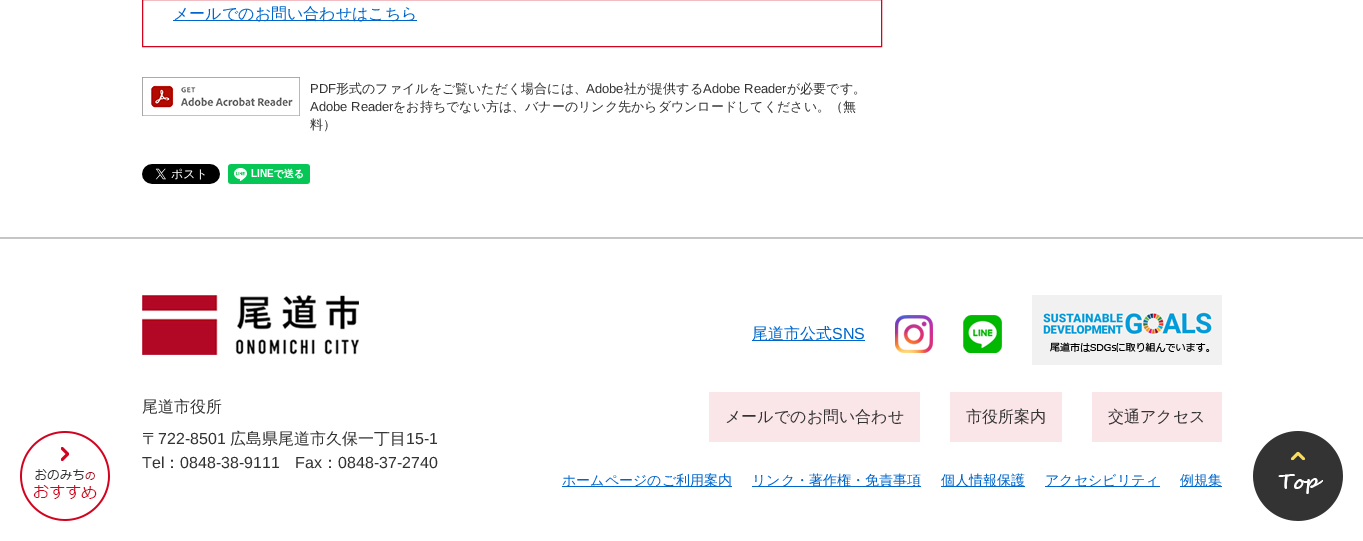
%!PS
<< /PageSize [1363 541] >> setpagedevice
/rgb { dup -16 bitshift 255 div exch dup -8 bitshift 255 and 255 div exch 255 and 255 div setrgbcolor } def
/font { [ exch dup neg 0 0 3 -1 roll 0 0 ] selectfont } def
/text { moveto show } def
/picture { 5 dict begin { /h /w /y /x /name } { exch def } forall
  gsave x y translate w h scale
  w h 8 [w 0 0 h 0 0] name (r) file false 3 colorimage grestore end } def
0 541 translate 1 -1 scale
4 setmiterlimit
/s1 { /WenQuanYiZenHei-Medium 16 font 16#0066CC rgb } def
/s2 { /LiberationSans-Regular 13 font 16#333333 rgb } def
/s3 { /WenQuanYiZenHei-Medium 13 font 16#333333 rgb } def
/s4 { /WenQuanYiZenHei-Medium 16 font 16#333333 rgb } def
/s5 { /LiberationSans-Regular 16 font 16#333333 rgb } def
/s6 { /LiberationSans-Regular 16 font 16#0066CC rgb } def
/s7 { /WenQuanYiZenHei-Medium 14 font 16#0066CC rgb } def
16#FFFFFF rgb
0 0 1363 541 rectfill
16#D1031F rgb
142.5 -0.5 739 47 rectstroke
16#0066CC rgb
173 20 244 1 rectfill
s1
(メールでのお問い合わせはこちら) 173 19 text
(pic1.raw) 142 77 158 39 picture
s2
(PDF) 310 93 text
s3
(形式のファイルをご覧いただく場合には、) 336 93 text
s2
(Adobe) 586 93 text
s3
(社が提供する) 624 93 text
s2
(Adobe Reader) 703 93 text
s3
(が必要です。) 787 93 text
s2
(Adobe Reader) 310 111 text
s3
(をお持ちでない方は、バナーのリンク先からダウンロードしてください。（無) 393 111 text
(料）) 310 129 text
(pic2.raw) 142 164 78 20 picture
(pic3.raw) 228 164 82 20 picture
16#C5C5C5 rgb
0 237 1363 2 rectfill
(pic4.raw) 20 431 90 90 picture
(pic5.raw) 142 295 217 60 picture
s4
(尾道市役所) 142 412 text
(〒) 142 444 text
s5
(722-8501) 158 444 text
s4
(広島県尾道市久保一丁目) 230 444 text
s5
(15-1) 406 444 text
(Tel) 142 468 text
s4
(：) 164 468 text
s5
(0848-38-9111) 180 468 text
(Fax) 295 468 text
s4
(：) 322 468 text
s5
(0848-37-2740) 338 468 text
16#0066CC rgb
752 340 113 1 rectfill
s1
(尾道市公式) 752 339 text
s6
(SNS) 832 339 text
(pic6.raw) 895 315 38 38 picture
(pic7.raw) 963 315 39 38 picture
(pic8.raw) 1032 295 190 70 picture
16#FAE5E8 rgb
709 392 211 50 rectfill
s4
(メールでのお問い合わせ) 725 422 text
16#FAE5E8 rgb
950 392 112 50 rectfill
s4
(市役所案内) 966 422 text
16#FAE5E8 rgb
1092 392 130 50 rectfill
s4
(交通アクセス) 1108 422 text
16#0066CC rgb
562 486 170 1 rectfill
s7
(ホームページのご利用案内) 562 485 text
752 486 169 1 rectfill
(リンク・著作権・免責事項) 752 485 text
941 486 84 1 rectfill
(個人情報保護) 941 485 text
1045 486 115 1 rectfill
(アクセシビリティ) 1045 485 text
1180 486 42 1 rectfill
(例規集) 1180 485 text
(pic9.raw) 1253 431 90 90 picture
showpage
